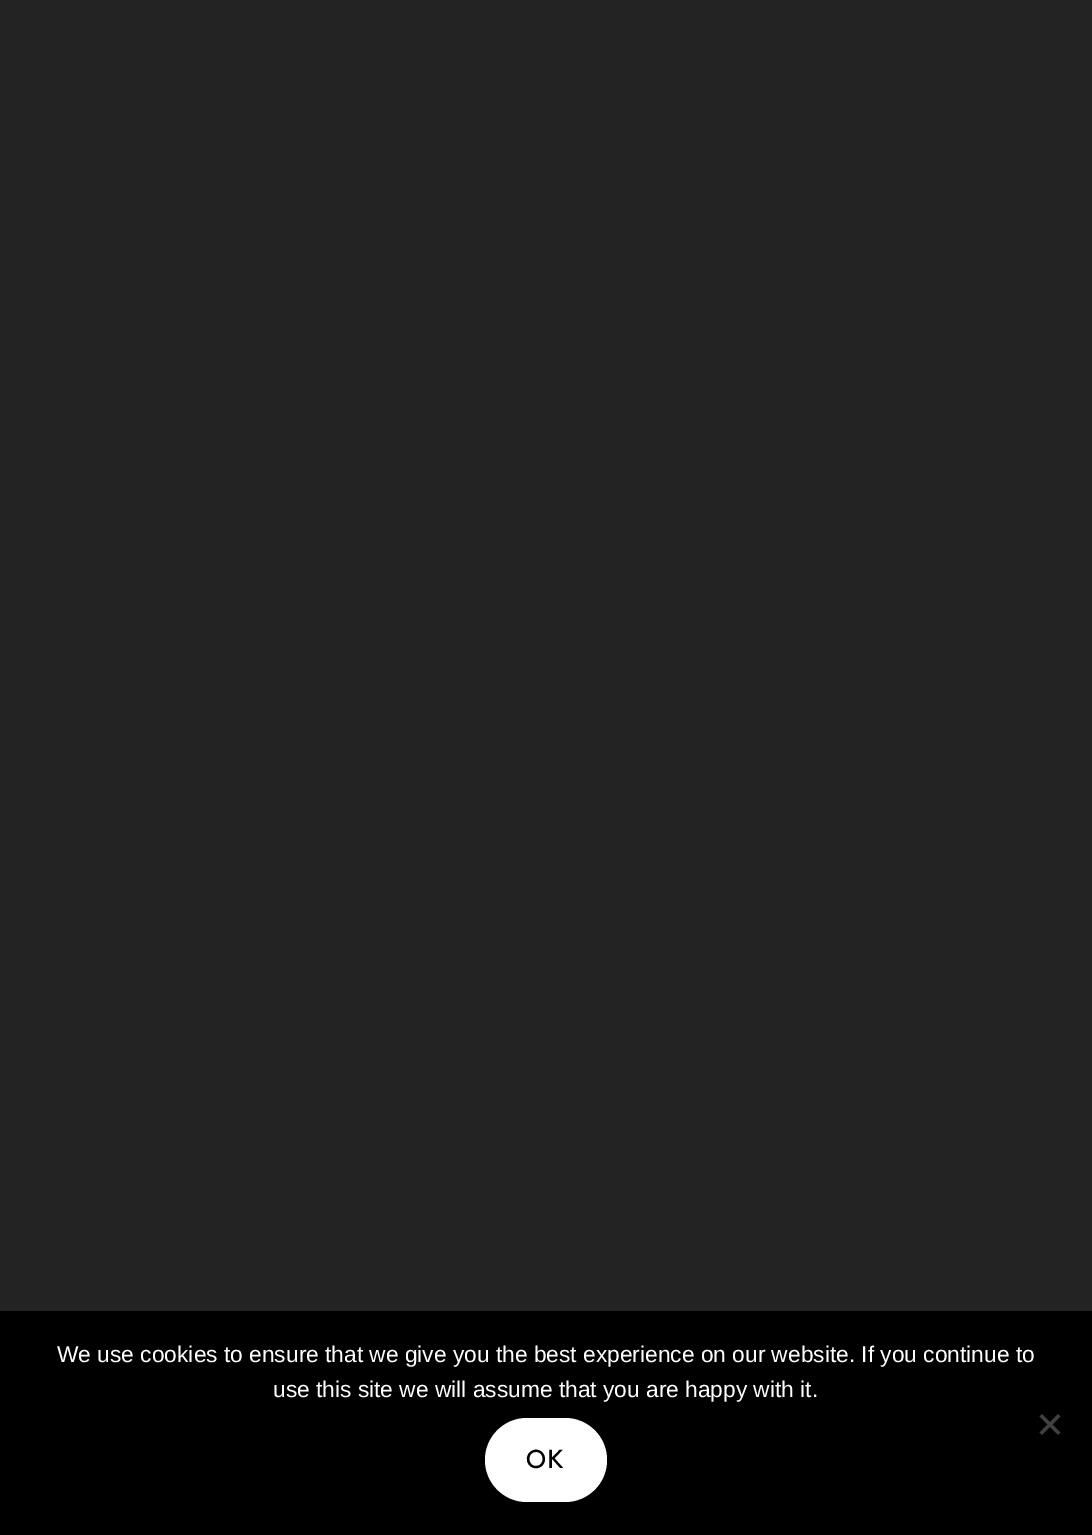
%!PS
<< /PageSize [1092 1535] >> setpagedevice
/rgb { dup -16 bitshift 255 div exch dup -8 bitshift 255 and 255 div exch 255 and 255 div setrgbcolor } def
/font { [ exch dup neg 0 0 3 -1 roll 0 0 ] selectfont } def
/text { moveto show } def
/roundrect { 5 dict begin { /r /h /w /y /x } { exch def } forall
  x r add y moveto x w add y 2 copy h add r arct x w add y h add x 1 index r arct
  x y h add x y r arct x y 2 copy exch w add exch r arct closepath end } def
0 1535 translate 1 -1 scale
4 setmiterlimit
/s1 { /LiberationSans-Regular 22.75 font 16#FFFFFF rgb } def
16#232323 rgb
0 0 1092 1535 rectfill
16#000000 rgb
0 1311 1092 224 rectfill
s1
(We use cookies to ensure that we give you the best experience on our website. If you continue to) 57 1362 text
(use this site we will assume that you are happy with it.) 273 1397 text
16#404040 rgb
1058 1414 moveto 1060.5 1416.5 lineto 1042 1435 lineto 1039.5 1432.5 lineto closepath fill
1039.5 1416.5 moveto 1042 1414 lineto 1060.5 1432.5 lineto 1058 1435 lineto closepath fill
16#FFFFFF rgb
485 1418 122 84 42 roundrect fill
/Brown-Regular 26 font
16#000000 rgb
526 1468 moveto 1 0 (OK) ashow
showpage
